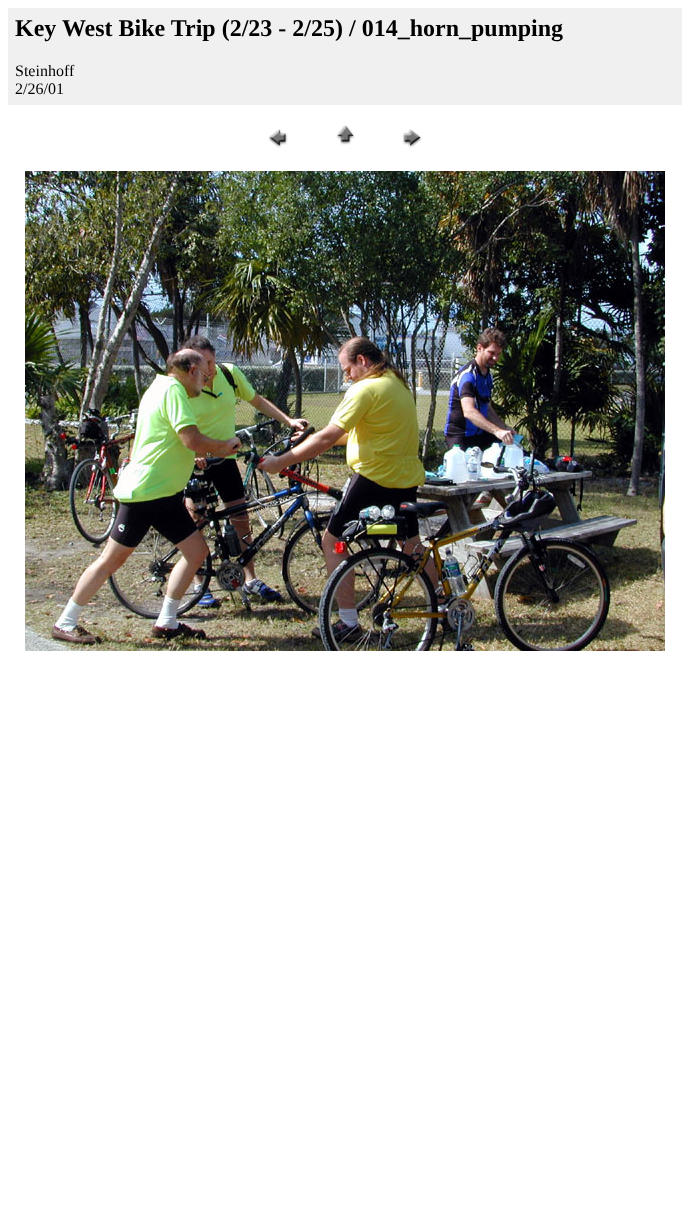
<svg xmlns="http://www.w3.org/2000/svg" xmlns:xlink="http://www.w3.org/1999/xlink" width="690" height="1205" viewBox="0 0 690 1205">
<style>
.cls-1{font:bold 24px Liberation Serif;fill:#000000}
.cls-2{font:16px Liberation Serif;fill:#000000}
</style>
<rect width="100%" height="100%" fill="#ffffff"/>
<rect fill="#f0f0f0" x="8" y="8" width="674" height="97"/>
<image xlink:href="image0.png" x="268" y="129" width="20" height="19"/>
<image xlink:href="image1.png" x="336" y="125" width="19" height="20"/>
<image xlink:href="image2.png" x="402" y="129" width="20" height="19"/>
<image xlink:href="image3.png" x="25" y="171" width="640" height="480"/>
<text class="cls-1" x="15" y="36">Key West Bike Trip (2/23 - 2/25) / 014_horn_pumping</text>
<text class="cls-2"><tspan x="15" y="76">Steinhoff</tspan><tspan x="15" y="94">2/26/01</tspan></text>
</svg>
